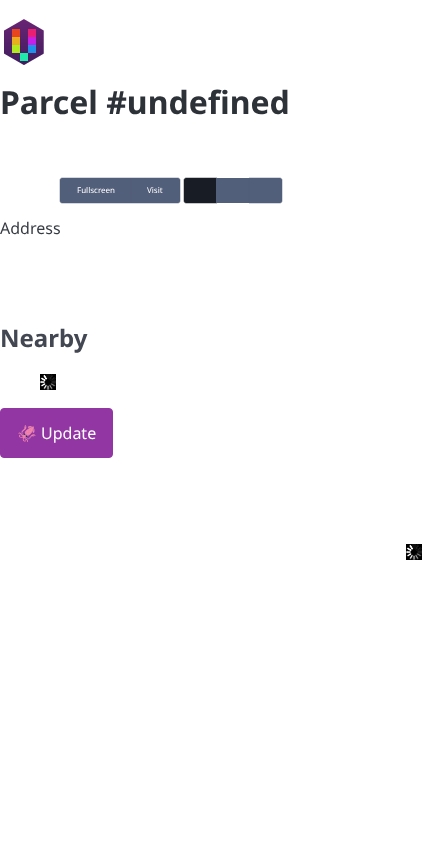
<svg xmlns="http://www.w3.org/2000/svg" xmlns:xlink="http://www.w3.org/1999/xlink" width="422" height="860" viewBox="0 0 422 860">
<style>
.cls-1{font:bold 32px Noto Sans;fill:#2d3138}
.cls-2{font:8px Noto Sans;fill:#ffffff}
.cls-3{font:16px Noto Sans;fill:#373c44}
.cls-4{font:bold 24px Noto Sans;fill:#424751}
.cls-5{font:16px Noto Color Emoji;fill:#ffffff}
.cls-6{font:16px Noto Sans;fill:#ffffff}
</style>
<rect width="100%" height="100%" fill="#ffffff"/>
<image xlink:href="image0.png" x="4" y="19" width="40" height="46"/>
<path fill="#525f7a" stroke="#525f7a" stroke-width="0.5" d="M62 178H131V203H62C61 203 60 202 60 201V180C60 179 61 178 62 178Z"/>
<path fill="#525f7a" stroke="#525f7a" stroke-width="0.5" d="M131 178H178C179 178 180 179 180 180V201C180 202 179 203 178 203H131Z"/>
<path fill="#181c25" stroke="#181c25" stroke-width="0.5" d="M186 178H217V203H186C185 203 184 202 184 201V180C184 179 185 178 186 178Z"/>
<rect fill="#525f7a" x="216" y="178" width="33" height="25"/>
<path fill="#525f7a" stroke="#525f7a" stroke-width="0.5" d="M249 178H280C281 178 282 179 282 180V201C282 202 281 203 280 203H249Z"/>
<image xlink:href="image1.png" x="40" y="374" width="16" height="16"/>
<rect fill="#9236a4" stroke="#9236a4" x="0.5" y="408.5" width="112" height="49" rx="3.5"/>
<image xlink:href="image1.png" x="406" y="544" width="16" height="16"/>
<text class="cls-1" x="0" y="114">Parcel #undefined</text>
<text class="cls-2" x="77" y="193">Fullscreen</text>
<text class="cls-2" x="147" y="193">Visit</text>
<text class="cls-3" x="0" y="234">Address</text>
<text class="cls-4" x="0" y="347">Nearby</text>
<text class="cls-5" x="17" y="439">🦑</text>
<text class="cls-6" x="41" y="439">Update</text>
</svg>
